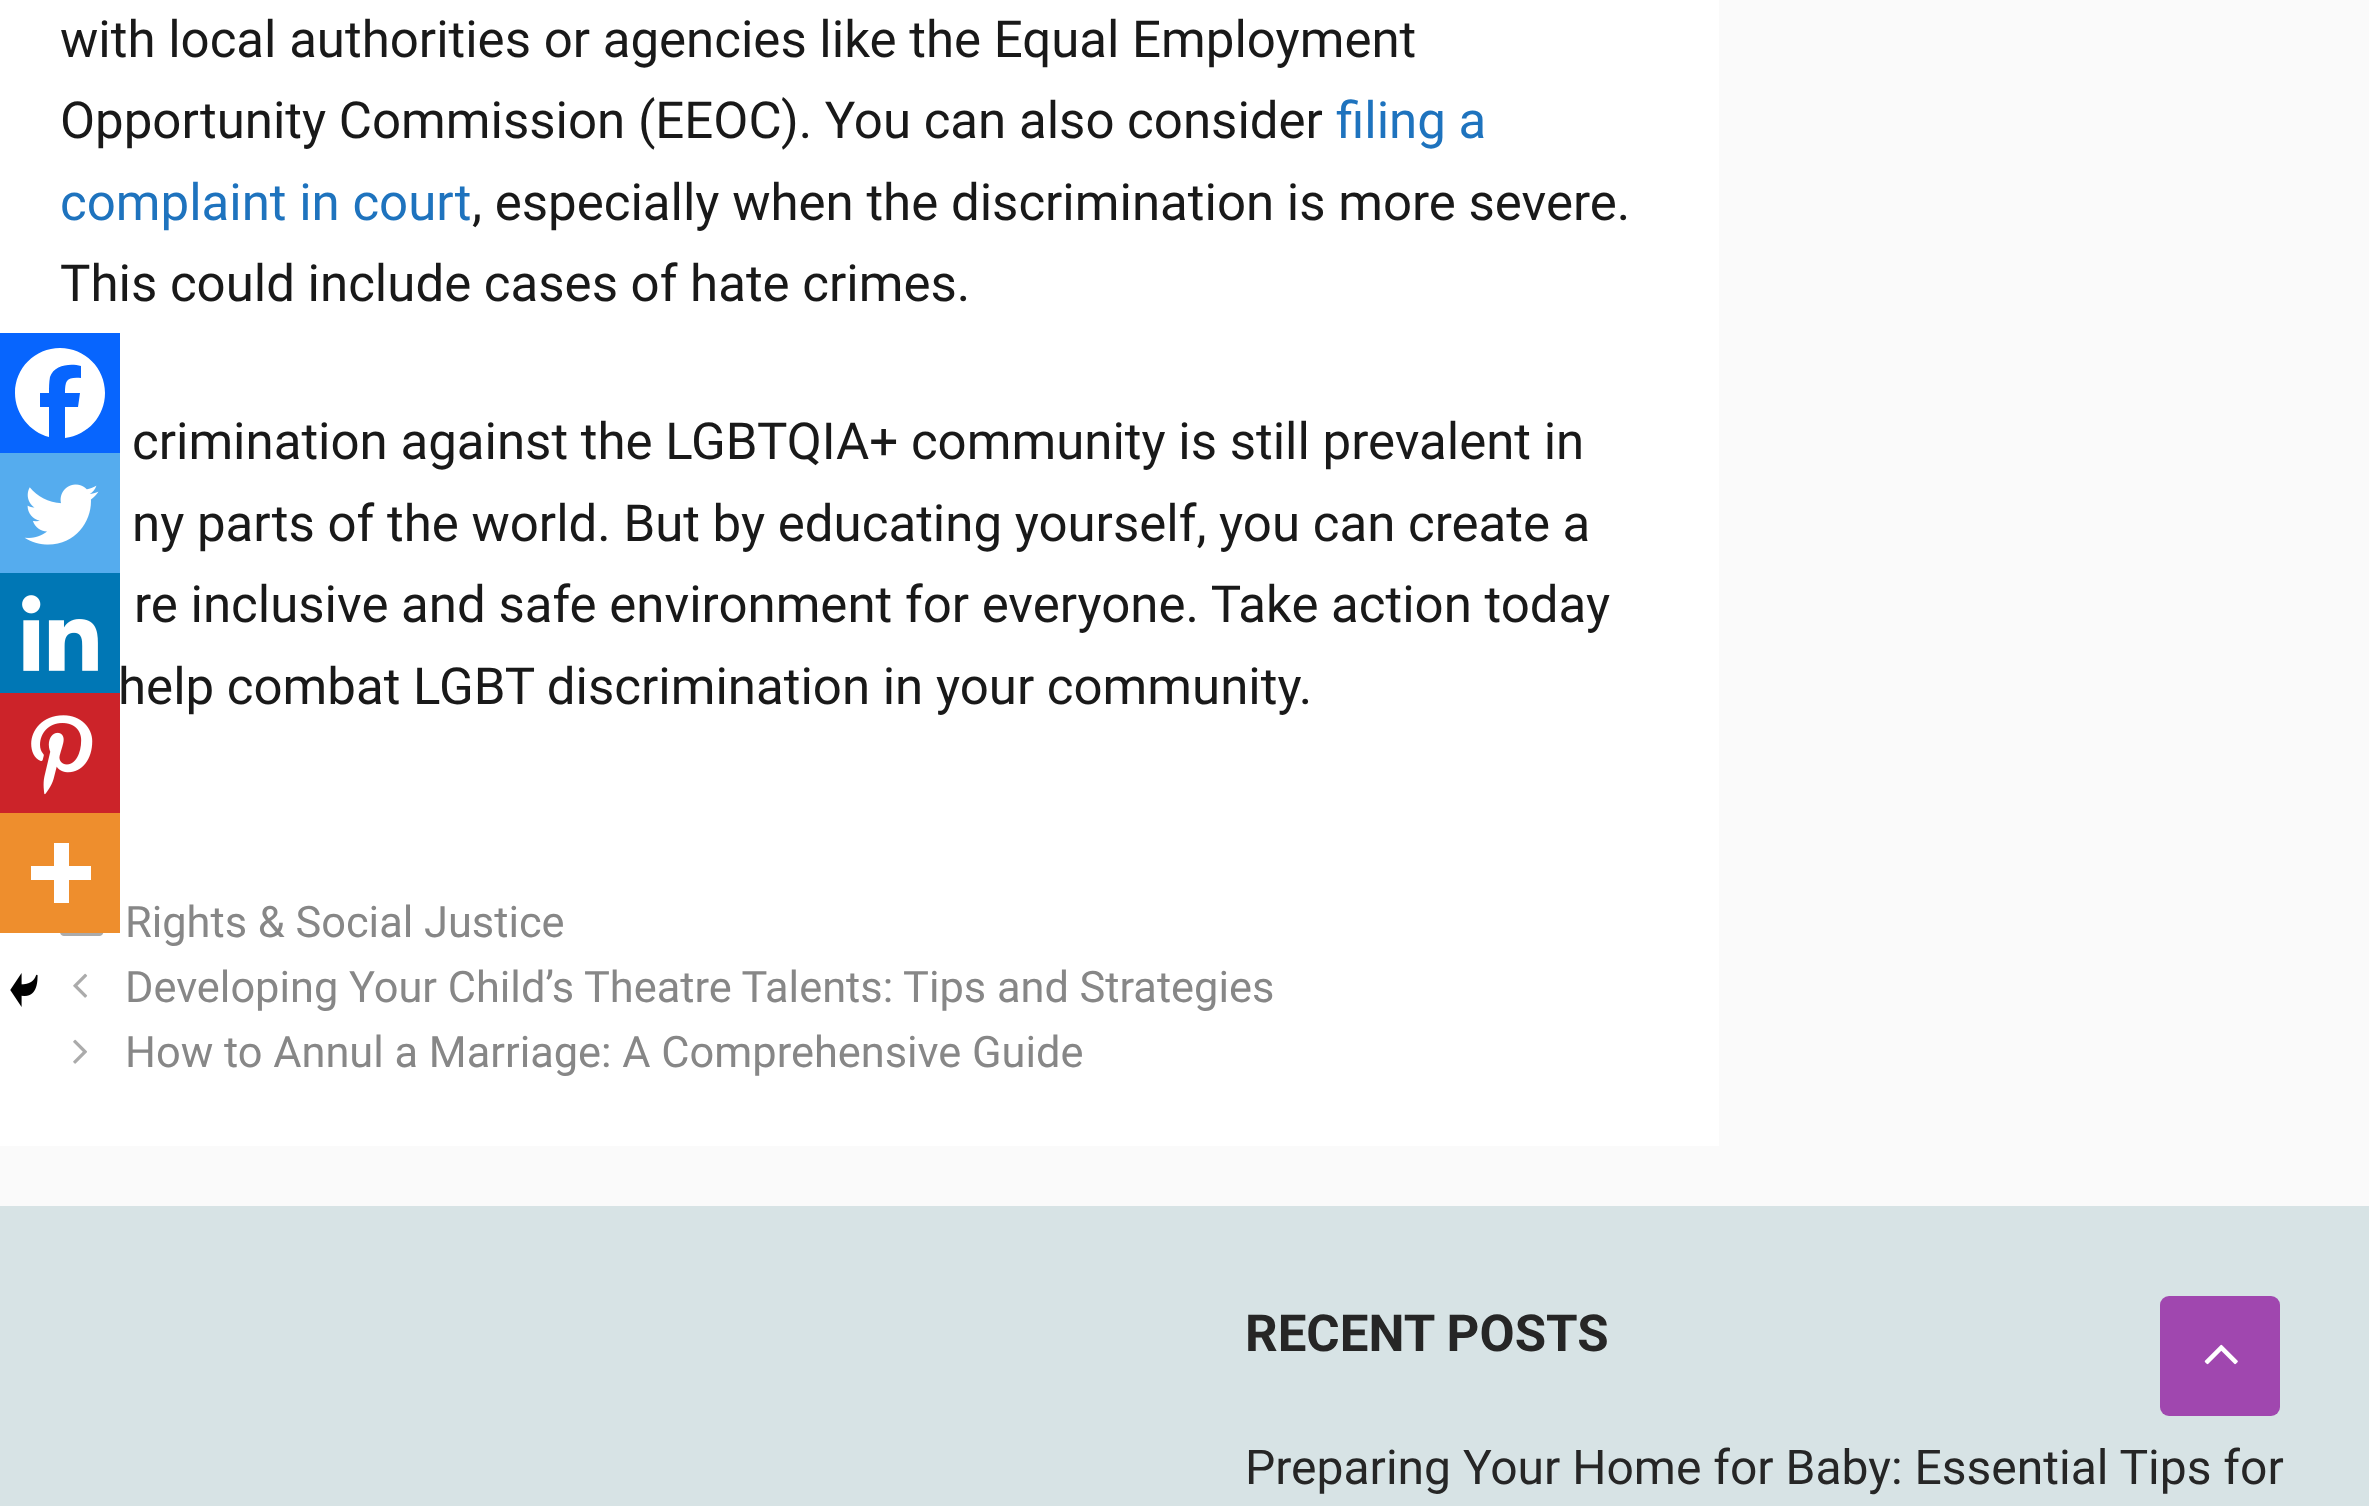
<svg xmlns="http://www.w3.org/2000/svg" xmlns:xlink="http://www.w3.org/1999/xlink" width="2369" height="1506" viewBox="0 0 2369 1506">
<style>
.cls-1{font:51px Roboto;fill:#191919}
.cls-2{font:51px Roboto;fill:#1e73be}
.cls-3{font:43.35px Roboto;fill:#878787}
.cls-4{font:bold 51px Roboto;fill:#262626}
.cls-5{font:48px Roboto;fill:#262626}
</style>
<rect width="100%" height="100%" fill="#fafafa"/>
<rect fill="#ffffff" x="0" y="0" width="1719" height="1146"/>
<rect fill="#0765fe" x="0" y="333" width="120" height="120"/>
<path fill="#ffffff" d="M105 393C105 368 85 348 60 348C35 348 15 368 15 393C15 414 30 432 49 437V407H40V393H49C49 388 49 382 50 377C54 365 70 363 81 366V378C67 377 65 380 65 393H80L78 407H65V438C88 435 105 416 105 393Z"/>
<rect fill="#55acee" x="0" y="453" width="120" height="120"/>
<image xlink:href="image0.png" x="24" y="484" width="75" height="61"/>
<rect fill="#0077b5" x="0" y="573" width="120" height="120"/>
<image xlink:href="image1.png" x="22" y="595" width="76" height="76"/>
<rect fill="#cc2329" x="0" y="693" width="120" height="120"/>
<image xlink:href="image2.png" x="31" y="715" width="62" height="80"/>
<rect fill="#ee8e2d" x="0" y="813" width="120" height="120"/>
<path fill="#ffffff" fill-rule="evenodd" d="M69 866V843H54V866H31V880H54V903H69V880H91V866Z"/>
<image xlink:href="image3.png" x="10" y="973" width="28" height="34"/>
<image xlink:href="image4.png" x="60" y="933" width="44" height="3"/>
<image xlink:href="image5.png" x="73" y="973" width="15" height="25"/>
<image xlink:href="image6.png" x="73" y="1039" width="14" height="25"/>
<rect fill="#d7e3e5" x="0" y="1206" width="2369" height="300"/>
<rect fill="#a047af" x="2160" y="1296" width="120" height="120" rx="9"/>
<image xlink:href="image7.png" x="2204" y="1344" width="34" height="21"/>
<text class="cls-1"><tspan x="60" y="57">with local authorities or agencies like the Equal Employment</tspan><tspan x="60" y="138">Opportunity Commission (EEOC). You can also consider</tspan></text>
<text class="cls-2" x="1336" y="138">filing a</text>
<text class="cls-2" x="60" y="220">complaint in court</text>
<text class="cls-1" x="472" y="220">, especially when the discrimination is more severe.</text>
<text class="cls-1" x="60" y="301">This could include cases of hate crimes.</text>
<text class="cls-1"><tspan x="132" y="459">crimination against the LGBTQIA+ community is still prevalent in</tspan><tspan x="132" y="541">ny parts of the world. But by educating yourself, you can create a</tspan></text>
<text class="cls-1" x="134" y="622">re inclusive and safe environment for everyone. Take action today</text>
<text class="cls-1" x="118" y="704">help combat LGBT discrimination in your community.</text>
<text class="cls-3"><tspan x="125" y="937">Rights &amp; Social Justice</tspan><tspan x="125" y="1002">Developing Your Child’s Theatre Talents: Tips and Strategies</tspan><tspan x="125" y="1067">How to Annul a Marriage: A Comprehensive Guide</tspan></text>
<text class="cls-4" x="1245" y="1351">RECENT POSTS</text>
<text class="cls-5" x="1245" y="1484">Preparing Your Home for Baby: Essential Tips for</text>
</svg>
